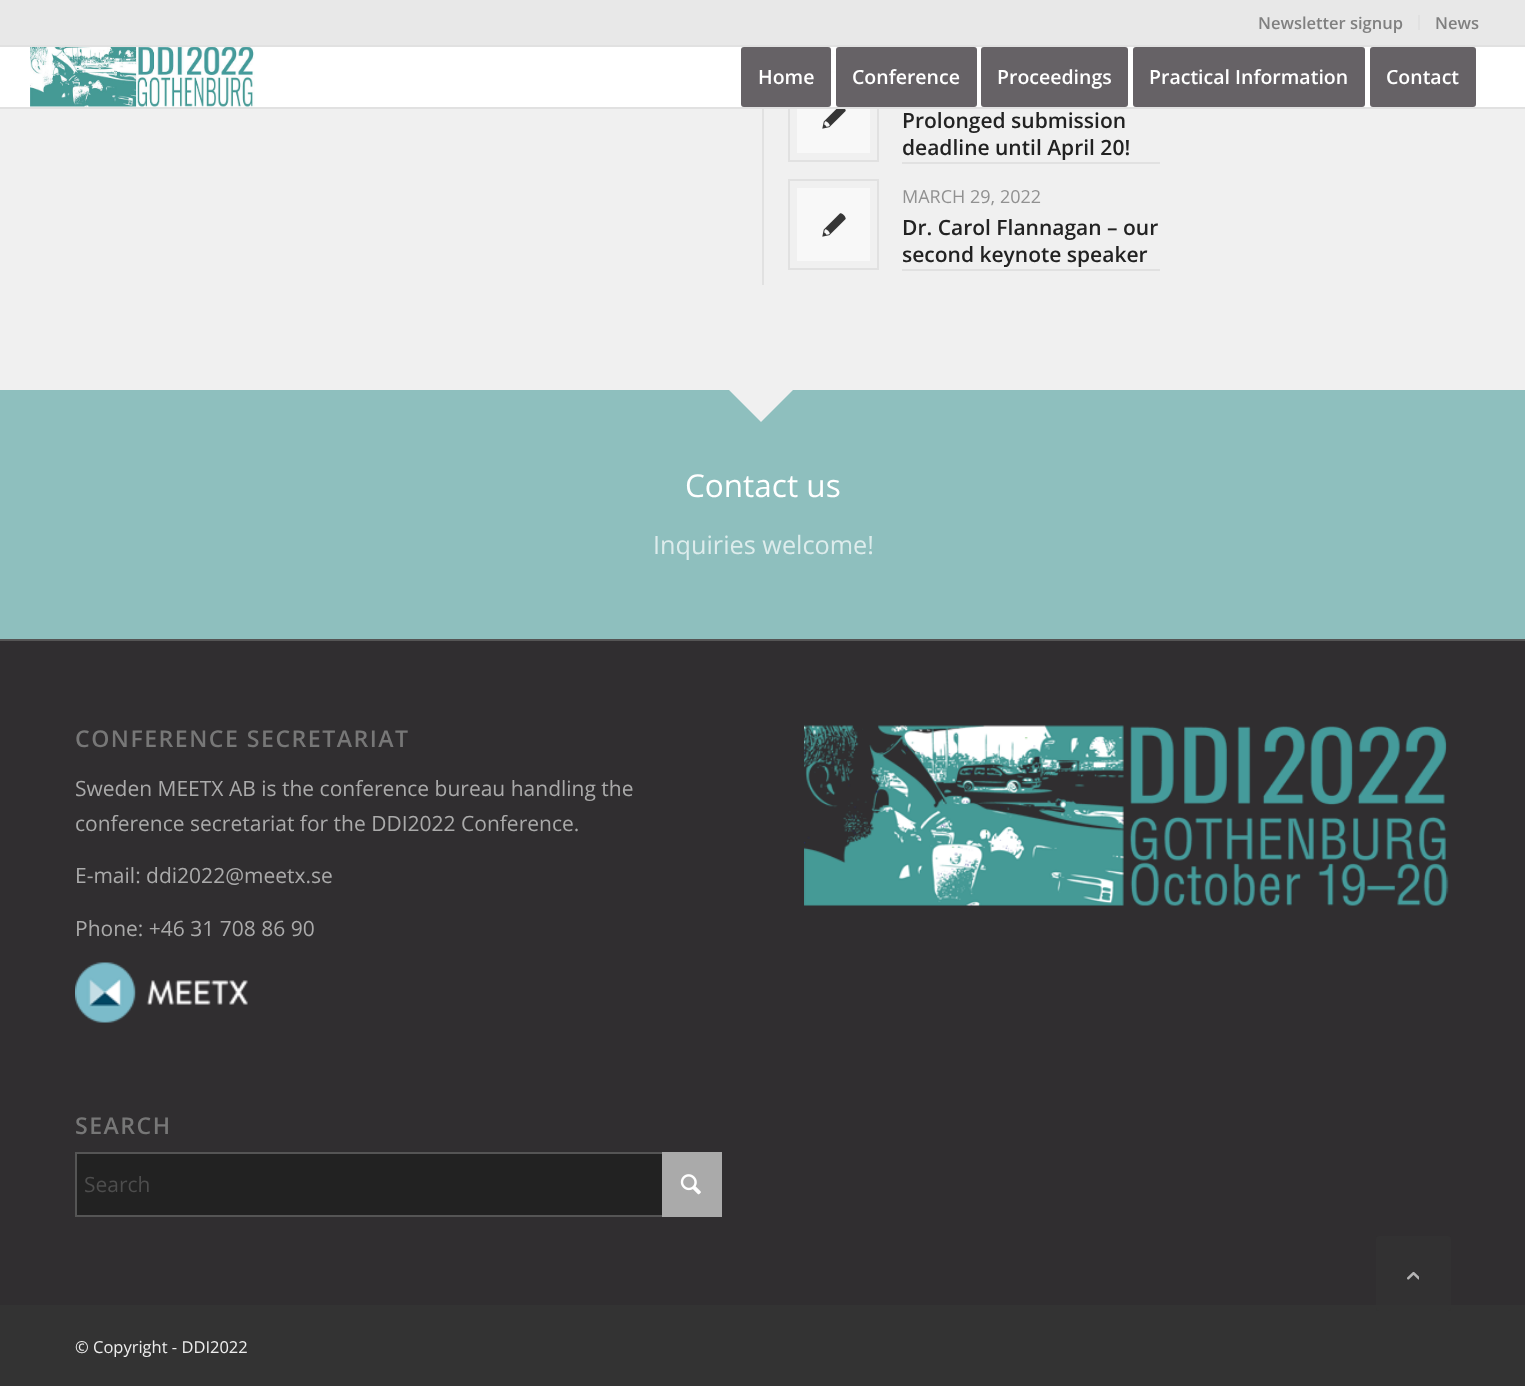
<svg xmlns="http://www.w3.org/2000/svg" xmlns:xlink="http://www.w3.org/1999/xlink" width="1525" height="1386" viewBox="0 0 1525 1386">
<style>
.cls-1{font:600 16.5px Open Sans;fill:#808080}
.cls-2{font:600 19.5px Open Sans;fill:#ffffff}
.cls-3{font:600 21px Open Sans;fill:#222222}
.cls-4{font:18px Open Sans;fill:#919191}
.cls-5{font:31.5px Open Sans;fill:#ffffff}
.cls-6{font:25.25px Open Sans;fill:#ddecec}
.cls-7{font:600 23.1px Open Sans;letter-spacing:1.5px;fill:#777777}
.cls-8{font:21px Open Sans;fill:#aaaaaa}
.cls-9{font:21px Open Sans;fill:#4d4d4d}
.cls-10{font:16.5px Open Sans;fill:#eeeeee}
</style>
<defs>
<clipPath id="clip1"><rect x="725" y="390" width="75" height="38"/></clipPath>
</defs>
<rect width="100%" height="100%" fill="#f0f0f0"/>
<rect fill="none" stroke="#e1e1e1" stroke-width="2" x="789" y="-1" width="89" height="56"/>
<rect fill="#e8e8e8" x="0" y="0" width="1525" height="45"/>
<rect fill="#e1e1e1" x="0" y="45" width="1525" height="2"/>
<rect fill="#e1e1e1" x="1418" y="15" width="2" height="15"/>
<rect fill="#e1e1e1" x="977" y="54" width="156" height="2"/>
<rect fill="none" stroke="#e1e1e1" stroke-width="2" x="789" y="72" width="89" height="89"/>
<rect fill="#f8f8f8" x="797" y="80" width="73" height="73"/>
<image xlink:href="image1.png" x="822" y="106" width="24" height="23"/>
<rect fill="#ffffff" fill-opacity="0.95" x="0" y="47" width="1525" height="60"/>
<rect fill="#e1e1e1" x="0" y="107" width="1525" height="2"/>
<image xlink:href="image0.png" x="30" y="47" width="225" height="60"/>
<rect fill="#666266" stroke="#666266" stroke-width="3" x="742.5" y="48.5" width="87" height="57" rx="1.5"/>
<rect fill="#666266" stroke="#666266" stroke-width="3" x="837.5" y="48.5" width="138" height="57" rx="1.5"/>
<rect fill="#666266" stroke="#666266" stroke-width="3" x="982.5" y="48.5" width="144" height="57" rx="1.5"/>
<rect fill="#666266" stroke="#666266" stroke-width="3" x="1134.5" y="48.5" width="229" height="57" rx="1.5"/>
<rect fill="#666266" stroke="#666266" stroke-width="3" x="1371.5" y="48.5" width="103" height="57" rx="1.5"/>
<rect fill="#e1e1e1" x="762" y="109" width="2" height="176"/>
<rect fill="#e1e1e1" x="902" y="162" width="258" height="2"/>
<rect fill="none" stroke="#e1e1e1" stroke-width="2" x="789" y="180" width="89" height="89"/>
<rect fill="#f8f8f8" x="797" y="188" width="73" height="73"/>
<image xlink:href="image2.png" x="822" y="213" width="24" height="24"/>
<rect fill="#e1e1e1" x="902" y="269" width="258" height="2"/>
<rect fill="#8ebfbe" x="0" y="390" width="1525" height="249"/>
<g clip-path="url(#clip1)">
<path fill="#f0f0f0" d="M761 316L814 369L761 422L708 369Z"/>
</g>
<rect fill="#302e30" x="0" y="641" width="1525" height="664"/>
<rect fill="#555555" x="0" y="639" width="1525" height="2"/>
<image xlink:href="image3.png" x="75" y="962" width="173" height="61"/>
<rect fill="#222222" x="77" y="1154" width="585" height="61"/>
<rect fill="none" stroke="#555555" stroke-width="2" x="76" y="1153" width="645" height="63"/>
<rect fill="#aaaaaa" x="662" y="1152" width="60" height="65"/>
<image xlink:href="image4.png" x="680" y="1174" width="21" height="21"/>
<image xlink:href="image5.png" x="804" y="725" width="645" height="181"/>
<rect fill="#333333" x="0" y="1305" width="1525" height="81"/>
<rect fill="#333333" fill-opacity="0.7" x="1376" y="1236" width="75" height="75" rx="3"/>
<image xlink:href="image6.png" x="1407" y="1271" width="12" height="9"/>
<text class="cls-1" x="1258" y="29">Newsletter signup</text>
<text class="cls-1" x="1435" y="29">News</text>
<text class="cls-2" x="758" y="84">Home</text>
<text class="cls-2" x="852" y="84">Conference</text>
<text class="cls-2" x="997" y="84">Proceedings</text>
<text class="cls-2" x="1149" y="84">Practical Information</text>
<text class="cls-2" x="1386" y="84">Contact</text>
<text class="cls-3"><tspan x="902" y="128">Prolonged submission</tspan><tspan x="902" y="155">deadline until April 20!</tspan></text>
<text class="cls-4" x="902" y="203">MARCH 29, 2022</text>
<text class="cls-3"><tspan x="902" y="235">Dr. Carol Flannagan – our</tspan><tspan x="902" y="262">second keynote speaker</tspan></text>
<text class="cls-5" x="685" y="497">Contact us</text>
<text class="cls-6" x="653" y="554">Inquiries welcome!</text>
<text class="cls-7" x="75" y="747">CONFERENCE SECRETARIAT</text>
<text class="cls-8"><tspan x="75" y="796">Sweden MEETX AB is the conference bureau handling the</tspan><tspan x="75" y="831">conference secretariat for the DDI2022 Conference.</tspan></text>
<text class="cls-8" x="75" y="883">E-mail: ddi2022@meetx.se</text>
<text class="cls-8" x="75" y="936">Phone: +46 31 708 86 90</text>
<text class="cls-7" x="75" y="1134">SEARCH</text>
<text class="cls-9" x="84" y="1192">Search</text>
<text class="cls-10" x="75" y="1353">© Copyright - DDI2022</text>
</svg>
